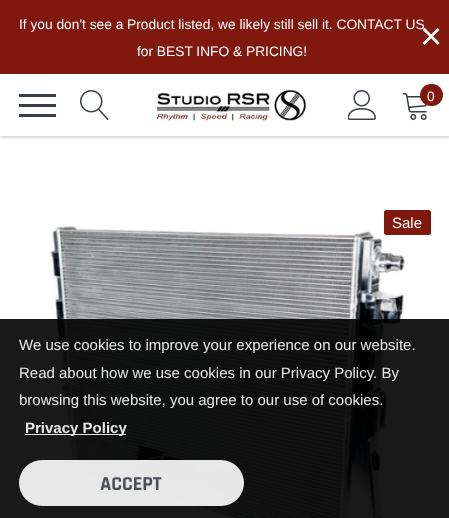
<svg xmlns="http://www.w3.org/2000/svg" xmlns:xlink="http://www.w3.org/1999/xlink" width="449" height="518" viewBox="0 0 449 518">
<style>
.cls-1{font:13.75px Arimo;fill:#ffffff}
.cls-2{font:38px Arimo;fill:#ffffff}
.cls-3{font:15px Arimo;fill:#ffffff}
.cls-4{font:15px Arimo;fill:#e7e7e7}
.cls-5{font:bold 15px Arimo;fill:#e7e7e7}
.cls-6{font:bold 20px Rajdhani;fill:#4a4f57}
</style>
<defs>
<clipPath id="clip1"><rect x="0" y="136" width="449" height="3"/></clipPath>
</defs>
<rect width="100%" height="100%" fill="#ffffff"/>
<rect fill="#80180e" x="0" y="0" width="449" height="74"/>
<g clip-path="url(#clip1)">
<rect fill="#000000" fill-opacity="0.15" filter="blur(1px)" x="0" y="75" width="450" height="63"/>
</g>
<rect fill="#383e47" x="19" y="104" width="37" height="3"/>
<rect fill="#383e47" x="19" y="94" width="37" height="3"/>
<rect fill="#383e47" x="19" y="114" width="37" height="3"/>
<image xlink:href="image0.png" x="80" y="90" width="29" height="30"/>
<image xlink:href="image1.png" x="156" y="88" width="150" height="35"/>
<image xlink:href="image2.png" x="348" y="90" width="28" height="30"/>
<image xlink:href="image3.png" x="402" y="93" width="25" height="27"/>
<rect fill="#80180e" x="420" y="84" width="23" height="22" rx="11"/>
<image xlink:href="image4.png" x="50" y="226" width="355" height="292"/>
<rect fill="#80180e" x="384" y="210" width="47" height="25" rx="2.5"/>
<rect fill="#000000" fill-opacity="0.9" x="0" y="319" width="449" height="199"/>
<rect fill="#ffffff" fill-opacity="0.9" x="25" y="434" width="101" height="1"/>
<rect fill="#ffffff" fill-opacity="0.9" x="19" y="460" width="225" height="46" rx="23"/>
<text class="cls-1" x="19" y="29">If you don't see a Product listed, we likely still sell it. CONTACT US</text>
<text class="cls-1" x="137" y="56">for BEST INFO &amp; PRICING!</text>
<text class="cls-2" x="420" y="49">×</text>
<text class="cls-1" x="427" y="101">0</text>
<text class="cls-3" x="392" y="228">Sale</text>
<text class="cls-4"><tspan x="19" y="350">We use cookies to improve your experience on our website.</tspan><tspan x="19" y="378">Read about how we use cookies in our Privacy Policy. By</tspan><tspan x="19" y="405">browsing this website, you agree to our use of cookies.</tspan></text>
<text class="cls-5" x="25" y="433">Privacy Policy</text>
<text class="cls-6" x="100" y="490">ACCEPT</text>
</svg>
